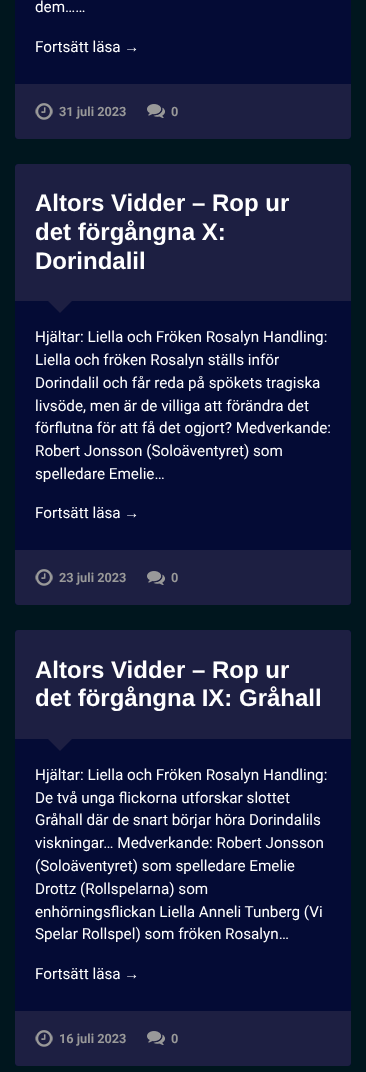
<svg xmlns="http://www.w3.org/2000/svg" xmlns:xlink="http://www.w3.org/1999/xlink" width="366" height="1072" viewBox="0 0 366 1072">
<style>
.cls-1{font:15.25px Roboto;fill:#ffffff}
.cls-2{font:15.25px Liberation Sans;fill:#ffffff}
.cls-3{font:bold 12.75px Roboto;fill:#999999}
.cls-4{font:bold 24px Liberation Sans;fill:#ffffff}
</style>
<rect width="100%" height="100%" fill="#00161e"/>
<rect fill="#040b35" x="15" y="-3" width="336" height="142" rx="3"/>
<path fill="#1d1f42" d="M15 84H351V136C351 137.5 349.5 139 348 139H18C16.5 139 15 137.5 15 136Z"/>
<image xlink:href="image0.png" x="35" y="103" width="18" height="17"/>
<image xlink:href="image1.png" x="147" y="104" width="18" height="14"/>
<rect fill="#040b35" x="15" y="164" width="336" height="441" rx="3"/>
<path fill="#1d1f42" d="M18 164H348C349.5 164 351 165.5 351 167V301H15V167C15 165.5 16.5 164 18 164Z"/>
<path fill="#1d1f42" d="M48 301H72L60 313Z"/>
<path fill="#1d1f42" d="M15 550H351V602C351 603.5 349.5 605 348 605H18C16.5 605 15 603.5 15 602Z"/>
<image xlink:href="image0.png" x="35" y="569" width="18" height="17"/>
<image xlink:href="image1.png" x="147" y="571" width="18" height="14"/>
<rect fill="#040b35" x="15" y="630" width="336" height="436" rx="3"/>
<path fill="#1d1f42" d="M18 630H348C349.5 630 351 631.5 351 633V739H15V633C15 631.5 16.5 630 18 630Z"/>
<path fill="#1d1f42" d="M48 739H72L60 751Z"/>
<path fill="#1d1f42" d="M15 1011H351V1063C351 1064.5 349.5 1066 348 1066H18C16.5 1066 15 1064.5 15 1063Z"/>
<image xlink:href="image0.png" x="35" y="1030" width="18" height="17"/>
<image xlink:href="image1.png" x="147" y="1031" width="18" height="14"/>
<text class="cls-1" x="35" y="12">dem……</text>
<text class="cls-1" x="35" y="52">Fortsätt läsa</text>
<text class="cls-2" x="124" y="52">→</text>
<text class="cls-3" x="59" y="116">31 juli 2023</text>
<text class="cls-3" x="171" y="116">0</text>
<text class="cls-4"><tspan x="35" y="211">Altors Vidder – Rop ur</tspan><tspan x="35" y="240">det förgångna X:</tspan><tspan x="35" y="269">Dorindalil</tspan></text>
<text class="cls-1"><tspan x="35" y="342">Hjältar: Liella och Fröken Rosalyn Handling:</tspan><tspan x="35" y="365">Liella och fröken Rosalyn ställs inför</tspan><tspan x="35" y="388">Dorindalil och får reda på spökets tragiska</tspan><tspan x="35" y="411">livsöde, men är de villiga att förändra det</tspan><tspan x="35" y="433">förflutna för att få det ogjort? Medverkande:</tspan><tspan x="35" y="456">Robert Jonsson (Soloäventyret) som</tspan><tspan x="35" y="479">spelledare Emelie…</tspan></text>
<text class="cls-1" x="35" y="518">Fortsätt läsa</text>
<text class="cls-2" x="124" y="518">→</text>
<text class="cls-3" x="59" y="582">23 juli 2023</text>
<text class="cls-3" x="171" y="582">0</text>
<text class="cls-4"><tspan x="35" y="678">Altors Vidder – Rop ur</tspan><tspan x="35" y="706">det förgångna IX: Gråhall</tspan></text>
<text class="cls-1"><tspan x="35" y="780">Hjältar: Liella och Fröken Rosalyn Handling:</tspan><tspan x="35" y="803">De två unga flickorna utforskar slottet</tspan><tspan x="35" y="825">Gråhall där de snart börjar höra Dorindalils</tspan><tspan x="35" y="848">viskningar… Medverkande: Robert Jonsson</tspan><tspan x="35" y="871">(Soloäventyret) som spelledare Emelie</tspan><tspan x="35" y="894">Drottz (Rollspelarna) som</tspan><tspan x="35" y="917">enhörningsflickan Liella Anneli Tunberg (Vi</tspan><tspan x="35" y="939">Spelar Rollspel) som fröken Rosalyn…</tspan></text>
<text class="cls-1" x="35" y="979">Fortsätt läsa</text>
<text class="cls-2" x="124" y="979">→</text>
<text class="cls-3" x="59" y="1043">16 juli 2023</text>
<text class="cls-3" x="171" y="1043">0</text>
</svg>
